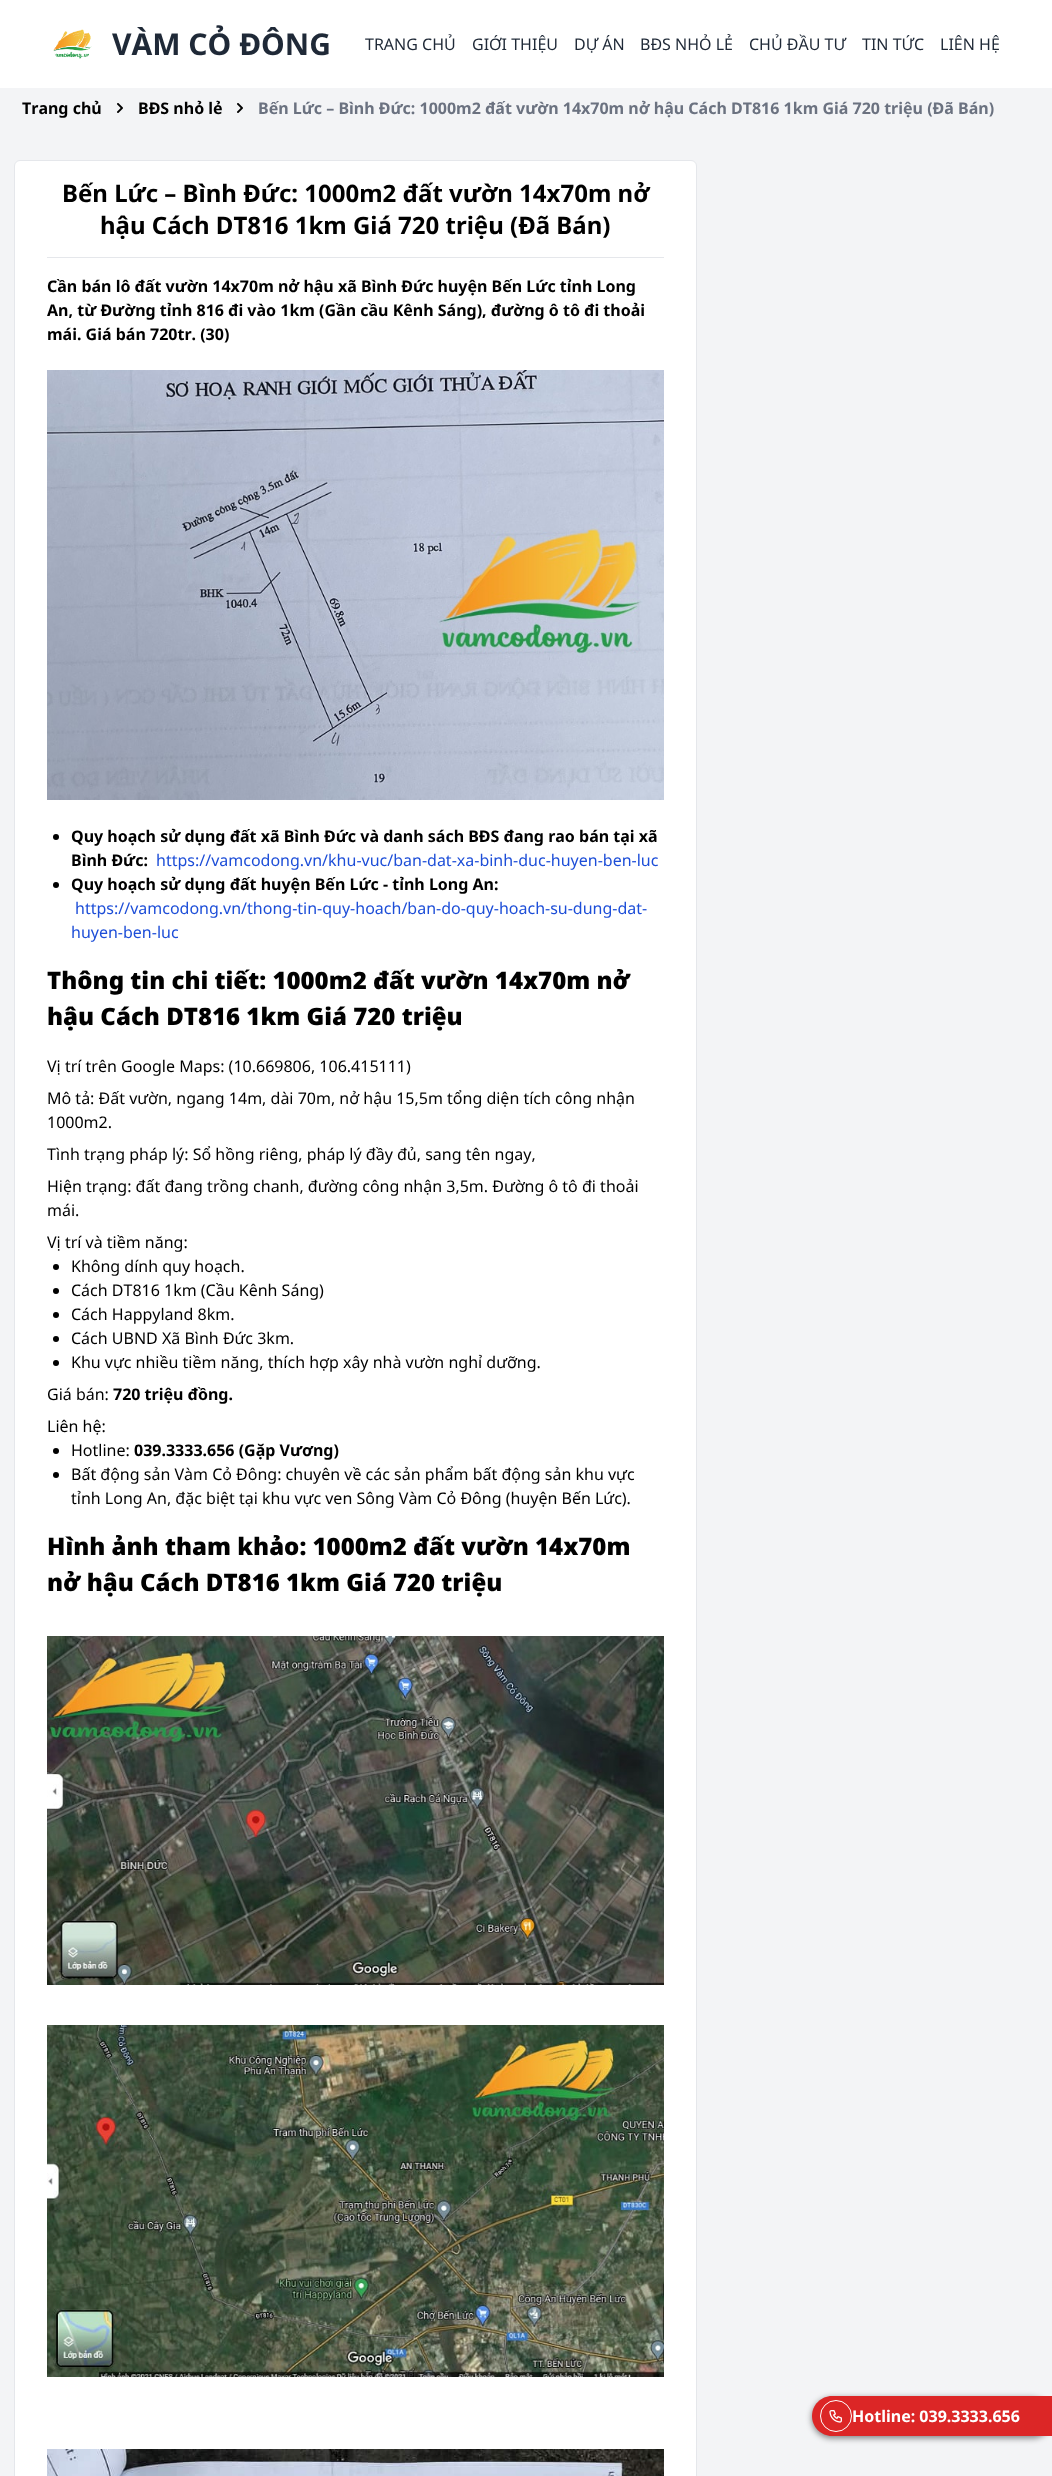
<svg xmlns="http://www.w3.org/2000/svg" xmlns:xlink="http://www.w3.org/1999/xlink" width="1052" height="2476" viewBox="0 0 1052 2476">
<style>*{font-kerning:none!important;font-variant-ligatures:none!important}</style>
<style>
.cls-1{font:bold 30px Noto Sans;fill:#1f2937}
.cls-2{font:16px Noto Sans;fill:#1f2937}
.cls-3{font:bold 16px Noto Sans;fill:#000000}
.cls-4{font:bold 16px Noto Sans;fill:#6b7280}
.cls-5{font:bold 24px Noto Sans;fill:#000000}
.cls-6{font:16px Noto Sans;fill:#1d4ed8}
.cls-7{font:900 24px Noto Sans;fill:#000000}
.cls-8{font:16px Noto Sans;fill:#000000}
.cls-9{font:bold 16px Noto Sans;fill:#ffffff}
</style>
<rect width="100%" height="100%" fill="#f3f4f6"/>
<rect fill="#ffffff" x="0" y="0" width="1052" height="88"/>
<image xlink:href="image0.png" x="53" y="29" width="39" height="30"/>
<image xlink:href="image1.png" x="117" y="103" width="6" height="10"/>
<image xlink:href="image1.png" x="237" y="103" width="6" height="10"/>
<rect fill="#ffffff" stroke="#e5e7eb" x="14.5" y="160.5" width="682" height="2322" rx="5.5"/>
<rect fill="#e5e7eb" x="47" y="257" width="617" height="1"/>
<image xlink:href="image2.png" x="47" y="370" width="617" height="430"/>
<circle fill="#000000" cx="56" cy="837" r="3"/>
<circle fill="#000000" cx="56" cy="885" r="3"/>
<circle fill="#000000" cx="56" cy="1267" r="3"/>
<circle fill="#000000" cx="56" cy="1291" r="3"/>
<circle fill="#000000" cx="56" cy="1315" r="3"/>
<circle fill="#000000" cx="56" cy="1339" r="3"/>
<circle fill="#000000" cx="56" cy="1363" r="3"/>
<circle fill="#000000" cx="56" cy="1451" r="3"/>
<circle fill="#000000" cx="56" cy="1475" r="3"/>
<image xlink:href="image3.png" x="47" y="1636" width="617" height="349"/>
<image xlink:href="image4.png" x="47" y="2025" width="617" height="352"/>
<image xlink:href="image5.png" x="47" y="2449" width="617" height="27"/>
<rect fill="#010101" fill-opacity="0.5" filter="blur(3px)" x="812" y="2398" width="240" height="40" rx="20"/>
<path fill="#dc2626" d="M832 2396H1052V2436H832C821 2436 812 2427 812 2416C812 2405 821 2396 832 2396Z"/>
<image xlink:href="image6.png" x="829" y="2410" width="13" height="13"/>
<circle fill="none" stroke="#ffffff" cx="836" cy="2416" r="15.5"/>
<text class="cls-1" x="112" y="55">VÀM CỎ ĐÔNG</text>
<text class="cls-2" x="365" y="50">TRANG CHỦ</text>
<text class="cls-2" x="472" y="50">GIỚI THIỆU</text>
<text class="cls-2" x="574" y="50">DỰ ÁN</text>
<text class="cls-2" x="640" y="50">BĐS NHỎ LẺ</text>
<text class="cls-2" x="749" y="50">CHỦ ĐẦU TƯ</text>
<text class="cls-2" x="862" y="50">TIN TỨC</text>
<text class="cls-2" x="940" y="50">LIÊN HỆ</text>
<text class="cls-3" x="22" y="114">Trang chủ</text>
<text class="cls-3" x="138" y="114">BĐS nhỏ lẻ</text>
<text class="cls-4" x="258" y="114">Bến Lức – Bình Đức: 1000m2 đất vườn 14x70m nở hậu Cách DT816 1km Giá 720 triệu (Đã Bán)</text>
<text class="cls-5" x="62" y="202">Bến Lức – Bình Đức: 1000m2 đất vườn 14x70m nở</text>
<text class="cls-5" x="100" y="234">hậu Cách DT816 1km Giá 720 triệu (Đã Bán)</text>
<text class="cls-3"><tspan x="47" y="292">Cần bán lô đất vườn 14x70m nở hậu xã Bình Đức huyện Bến Lức tỉnh Long</tspan><tspan x="47" y="316">An, từ Đường tỉnh 816 đi vào 1km (Gần cầu Kênh Sáng), đường ô tô đi thoải</tspan><tspan x="47" y="340">mái. Giá bán 720tr. (30)</tspan></text>
<text class="cls-3"><tspan x="71" y="842">Quy hoạch sử dụng đất xã Bình Đức và danh sách BĐS đang rao bán tại xã</tspan><tspan x="71" y="866">Bình Đức:</tspan></text>
<text class="cls-6" x="156" y="866">https://vamcodong.vn/khu-vuc/ban-dat-xa-binh-duc-huyen-ben-luc</text>
<text class="cls-3" x="71" y="890">Quy hoạch sử dụng đất huyện Bến Lức - tỉnh Long An:</text>
<text class="cls-6" x="75" y="914">https://vamcodong.vn/thong-tin-quy-hoach/ban-do-quy-hoach-su-dung-dat-</text>
<text class="cls-6" x="71" y="938">huyen-ben-luc</text>
<text class="cls-7"><tspan x="47" y="989">Thông tin chi tiết: 1000m2 đất vườn 14x70m nở</tspan><tspan x="47" y="1025">hậu Cách DT816 1km Giá 720 triệu</tspan></text>
<text class="cls-8" x="47" y="1072">Vị trí trên Google Maps: (10.669806, 106.415111)</text>
<text class="cls-8"><tspan x="47" y="1104">Mô tả: Đất vườn, ngang 14m, dài 70m, nở hậu 15,5m tổng diện tích công nhận</tspan><tspan x="47" y="1128">1000m2.</tspan></text>
<text class="cls-8" x="47" y="1160">Tình trạng pháp lý: Sổ hồng riêng, pháp lý đầy đủ, sang tên ngay,</text>
<text class="cls-8"><tspan x="47" y="1192">Hiện trạng: đất đang trồng chanh, đường công nhận 3,5m. Đường ô tô đi thoải</tspan><tspan x="47" y="1216">mái.</tspan></text>
<text class="cls-8" x="47" y="1248">Vị trí và tiềm năng:</text>
<text class="cls-8"><tspan x="71" y="1272">Không dính quy hoạch.</tspan><tspan x="71" y="1296">Cách DT816 1km (Cầu Kênh Sáng)</tspan><tspan x="71" y="1320">Cách Happyland 8km.</tspan><tspan x="71" y="1344">Cách UBND Xã Bình Đức 3km.</tspan><tspan x="71" y="1368">Khu vực nhiều tiềm năng, thích hợp xây nhà vườn nghỉ dưỡng.</tspan></text>
<text class="cls-8" x="47" y="1400">Giá bán:</text>
<text class="cls-3" x="113" y="1400">720 triệu đồng.</text>
<text class="cls-8" x="47" y="1432">Liên hệ:</text>
<text class="cls-8" x="71" y="1456">Hotline:</text>
<text class="cls-3" x="134" y="1456">039.3333.656 (Gặp Vương)</text>
<text class="cls-8"><tspan x="71" y="1480">Bất động sản Vàm Cỏ Đông: chuyên về các sản phẩm bất động sản khu vực</tspan><tspan x="71" y="1504">tỉnh Long An, đặc biệt tại khu vực ven Sông Vàm Cỏ Đông (huyện Bến Lức).</tspan></text>
<text class="cls-7"><tspan x="47" y="1555">Hình ảnh tham khảo: 1000m2 đất vườn 14x70m</tspan><tspan x="47" y="1591">nở hậu Cách DT816 1km Giá 720 triệu</tspan></text>
<text class="cls-9" x="852" y="2422">Hotline: 039.3333.656</text>
</svg>
